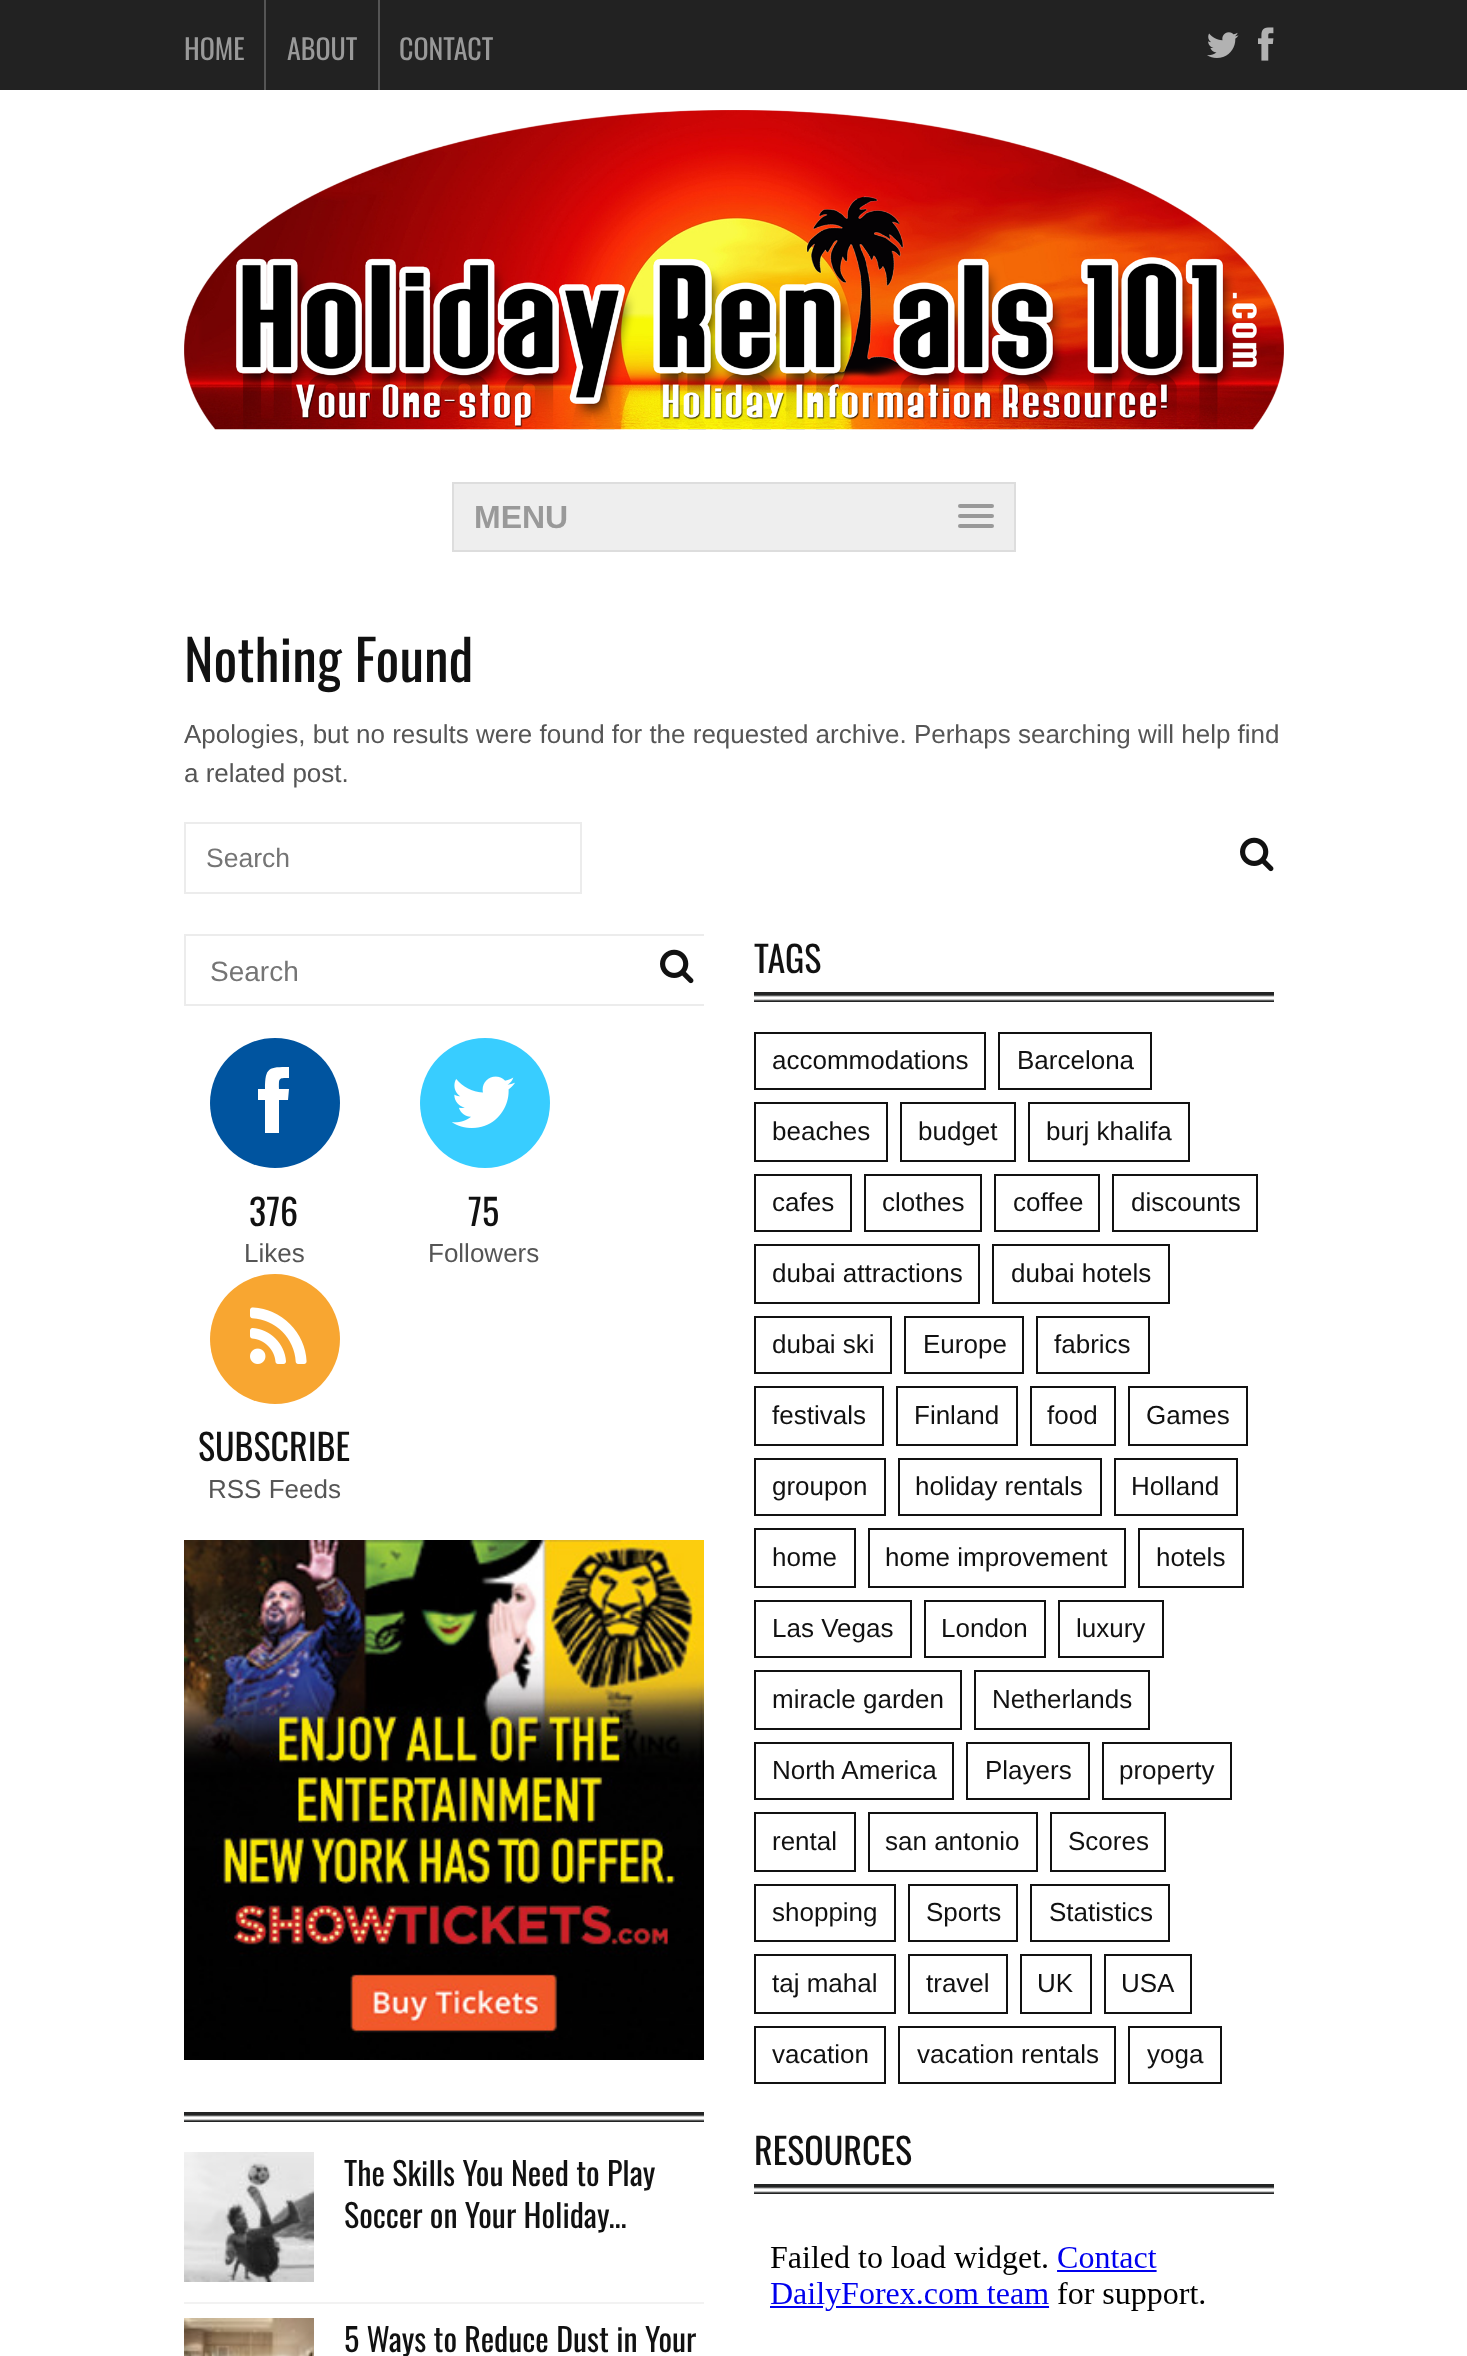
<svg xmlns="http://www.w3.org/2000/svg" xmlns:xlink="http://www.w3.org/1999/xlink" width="1467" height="2356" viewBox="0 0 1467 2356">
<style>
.cls-1{font:28px Oswald;fill:#999999}
.cls-2{font:bold 32px Liberation Sans;fill:#999999}
.cls-3{font:56px Oswald;fill:#111111}
.cls-4{font:26px Liberation Sans;fill:#555555}
.cls-5{font:26.5px Liberation Sans;fill:#757575}
.cls-6{font:36px Oswald;fill:#111111}
.cls-7{font:28px Liberation Sans;fill:#757575}
.cls-8{font:26px Liberation Sans;fill:#111111}
.cls-9{font:32px Oswald;fill:#111111}
</style>
<defs>
<clipPath id="clip1"><rect x="184" y="934" width="520" height="72"/></clipPath>
</defs>
<rect width="100%" height="100%" fill="#ffffff"/>
<rect fill="#222222" x="0" y="0" width="1467" height="90"/>
<rect fill="#555555" x="264" y="0" width="2" height="90"/>
<rect fill="#555555" x="378" y="0" width="2" height="90"/>
<image xlink:href="image0.png" x="1207" y="32" width="32" height="26"/>
<image xlink:href="image1.png" x="1258" y="27" width="16" height="34"/>
<image xlink:href="image2.png" x="184" y="110" width="1100" height="320"/>
<rect fill="#eeeeee" stroke="#dddddd" stroke-width="2" x="453" y="483" width="562" height="68"/>
<rect fill="#999999" x="958" y="504" width="36" height="4" rx="2"/>
<rect fill="#999999" x="958" y="514" width="36" height="4" rx="2"/>
<rect fill="#999999" x="958" y="524" width="36" height="4" rx="2"/>
<rect fill="none" stroke="#ececec" stroke-width="2" x="185" y="823" width="396" height="70"/>
<image xlink:href="image3.png" x="1240" y="837" width="34" height="35"/>
<image xlink:href="image4.png" x="754" y="992" width="520" height="10"/>
<rect fill="none" stroke="#111111" stroke-width="2" x="755" y="1033" width="230" height="56"/>
<rect fill="none" stroke="#111111" stroke-width="2" x="999" y="1033" width="152" height="56"/>
<rect fill="none" stroke="#111111" stroke-width="2" x="755" y="1103" width="132" height="58"/>
<rect fill="none" stroke="#111111" stroke-width="2" x="901" y="1103" width="114" height="58"/>
<rect fill="none" stroke="#111111" stroke-width="2" x="1029" y="1103" width="160" height="58"/>
<rect fill="none" stroke="#111111" stroke-width="2" x="755" y="1175" width="96" height="56"/>
<rect fill="none" stroke="#111111" stroke-width="2" x="865" y="1175" width="116" height="56"/>
<rect fill="none" stroke="#111111" stroke-width="2" x="995" y="1175" width="104" height="56"/>
<rect fill="none" stroke="#111111" stroke-width="2" x="1113" y="1175" width="144" height="56"/>
<rect fill="none" stroke="#111111" stroke-width="2" x="755" y="1245" width="224" height="58"/>
<rect fill="none" stroke="#111111" stroke-width="2" x="993" y="1245" width="176" height="58"/>
<rect fill="none" stroke="#111111" stroke-width="2" x="755" y="1317" width="136" height="56"/>
<rect fill="none" stroke="#111111" stroke-width="2" x="905" y="1317" width="118" height="56"/>
<rect fill="none" stroke="#111111" stroke-width="2" x="1037" y="1317" width="112" height="56"/>
<rect fill="none" stroke="#111111" stroke-width="2" x="755" y="1387" width="128" height="58"/>
<rect fill="none" stroke="#111111" stroke-width="2" x="897" y="1387" width="120" height="58"/>
<rect fill="none" stroke="#111111" stroke-width="2" x="1031" y="1387" width="84" height="58"/>
<rect fill="none" stroke="#111111" stroke-width="2" x="1129" y="1387" width="118" height="58"/>
<rect fill="none" stroke="#111111" stroke-width="2" x="755" y="1459" width="130" height="56"/>
<rect fill="none" stroke="#111111" stroke-width="2" x="899" y="1459" width="202" height="56"/>
<rect fill="none" stroke="#111111" stroke-width="2" x="1115" y="1459" width="122" height="56"/>
<rect fill="none" stroke="#111111" stroke-width="2" x="755" y="1529" width="100" height="58"/>
<rect fill="none" stroke="#111111" stroke-width="2" x="869" y="1529" width="256" height="58"/>
<rect fill="none" stroke="#111111" stroke-width="2" x="1139" y="1529" width="104" height="58"/>
<rect fill="none" stroke="#111111" stroke-width="2" x="755" y="1601" width="156" height="56"/>
<rect fill="none" stroke="#111111" stroke-width="2" x="925" y="1601" width="120" height="56"/>
<rect fill="none" stroke="#111111" stroke-width="2" x="1059" y="1601" width="104" height="56"/>
<rect fill="none" stroke="#111111" stroke-width="2" x="755" y="1671" width="206" height="58"/>
<rect fill="none" stroke="#111111" stroke-width="2" x="975" y="1671" width="174" height="58"/>
<rect fill="none" stroke="#111111" stroke-width="2" x="755" y="1743" width="198" height="56"/>
<rect fill="none" stroke="#111111" stroke-width="2" x="967" y="1743" width="122" height="56"/>
<rect fill="none" stroke="#111111" stroke-width="2" x="1103" y="1743" width="128" height="56"/>
<rect fill="none" stroke="#111111" stroke-width="2" x="755" y="1813" width="100" height="58"/>
<rect fill="none" stroke="#111111" stroke-width="2" x="869" y="1813" width="168" height="58"/>
<rect fill="none" stroke="#111111" stroke-width="2" x="1051" y="1813" width="114" height="58"/>
<rect fill="none" stroke="#111111" stroke-width="2" x="755" y="1885" width="140" height="56"/>
<rect fill="none" stroke="#111111" stroke-width="2" x="909" y="1885" width="108" height="56"/>
<rect fill="none" stroke="#111111" stroke-width="2" x="1031" y="1885" width="138" height="56"/>
<rect fill="none" stroke="#111111" stroke-width="2" x="755" y="1955" width="140" height="58"/>
<rect fill="none" stroke="#111111" stroke-width="2" x="909" y="1955" width="98" height="58"/>
<rect fill="none" stroke="#111111" stroke-width="2" x="1021" y="1955" width="70" height="58"/>
<rect fill="none" stroke="#111111" stroke-width="2" x="1105" y="1955" width="86" height="58"/>
<rect fill="none" stroke="#111111" stroke-width="2" x="755" y="2027" width="130" height="56"/>
<rect fill="none" stroke="#111111" stroke-width="2" x="899" y="2027" width="216" height="56"/>
<rect fill="none" stroke="#111111" stroke-width="2" x="1129" y="2027" width="92" height="56"/>
<circle fill="#00549f" cx="275" cy="1103" r="65"/>
<path fill="#ffffff" d="M279 1089H289L288 1100H279V1133H265V1100H258V1089H265C265 1067 269 1067 289 1067V1078C278 1078 279 1078 279 1089Z"/>
<circle fill="#38cdff" cx="485" cy="1103" r="65"/>
<image xlink:href="image5.png" x="452" y="1076" width="63" height="52"/>
<circle fill="#f8a631" cx="275" cy="1339" r="65"/>
<image xlink:href="image6.png" x="250" y="1307" width="57" height="57"/>
<image xlink:href="image7.png" x="184" y="1540" width="520" height="520"/>
<image xlink:href="image4.png" x="754" y="2184" width="520" height="10"/>
<image xlink:href="image8.png" x="770" y="2245" width="435" height="66"/>
<image xlink:href="image4.png" x="184" y="2112" width="520" height="10"/>
<rect fill="#f2f2f2" x="184" y="2302" width="520" height="2"/>
<image xlink:href="image9.png" x="184" y="2152" width="130" height="130"/>
<image xlink:href="image10.png" x="184" y="2318" width="130" height="38"/>
<text class="cls-1" x="184" y="60">HOME</text>
<text class="cls-1" x="287" y="60">ABOUT</text>
<text class="cls-1" x="399" y="60">CONTACT</text>
<text class="cls-2" x="474" y="528">MENU</text>
<text class="cls-3" x="184" y="682">Nothing Found</text>
<text class="cls-4"><tspan x="184" y="743">Apologies, but no results were found for the requested archive. Perhaps searching will help find</tspan><tspan x="184" y="782">a related post.</tspan></text>
<text class="cls-5" x="206" y="867">Search</text>
<text class="cls-6" x="754" y="973">TAGS</text>
<g clip-path="url(#clip1)">
<rect fill="none" stroke="#ececec" stroke-width="2" x="185" y="935" width="598" height="70"/>
</g>
<image xlink:href="image3.png" x="660" y="949" width="34" height="35"/>
<text class="cls-7" x="210" y="981">Search</text>
<text class="cls-8" x="772" y="1069">accommodations</text>
<text class="cls-8" x="1017" y="1069">Barcelona</text>
<text class="cls-8" x="772" y="1140">beaches</text>
<text class="cls-8" x="918" y="1140">budget</text>
<text class="cls-8" x="1046" y="1140">burj khalifa</text>
<text class="cls-8" x="772" y="1211">cafes</text>
<text class="cls-8" x="882" y="1211">clothes</text>
<text class="cls-8" x="1013" y="1211">coffee</text>
<text class="cls-8" x="1131" y="1211">discounts</text>
<text class="cls-8" x="772" y="1282">dubai attractions</text>
<text class="cls-8" x="1011" y="1282">dubai hotels</text>
<text class="cls-8" x="772" y="1353">dubai ski</text>
<text class="cls-8" x="923" y="1353">Europe</text>
<text class="cls-8" x="1054" y="1353">fabrics</text>
<text class="cls-8" x="772" y="1424">festivals</text>
<text class="cls-8" x="914" y="1424">Finland</text>
<text class="cls-8" x="1047" y="1424">food</text>
<text class="cls-8" x="1146" y="1424">Games</text>
<text class="cls-8" x="772" y="1495">groupon</text>
<text class="cls-8" x="915" y="1495">holiday rentals</text>
<text class="cls-8" x="1131" y="1495">Holland</text>
<text class="cls-8" x="772" y="1566">home</text>
<text class="cls-8" x="885" y="1566">home improvement</text>
<text class="cls-8" x="1156" y="1566">hotels</text>
<text class="cls-8" x="772" y="1637">Las Vegas</text>
<text class="cls-8" x="941" y="1637">London</text>
<text class="cls-8" x="1076" y="1637">luxury</text>
<text class="cls-8" x="772" y="1708">miracle garden</text>
<text class="cls-8" x="992" y="1708">Netherlands</text>
<text class="cls-8" x="772" y="1779">North America</text>
<text class="cls-8" x="985" y="1779">Players</text>
<text class="cls-8" x="1119" y="1779">property</text>
<text class="cls-8" x="772" y="1850">rental</text>
<text class="cls-8" x="885" y="1850">san antonio</text>
<text class="cls-8" x="1068" y="1850">Scores</text>
<text class="cls-8" x="772" y="1921">shopping</text>
<text class="cls-8" x="926" y="1921">Sports</text>
<text class="cls-8" x="1049" y="1921">Statistics</text>
<text class="cls-8" x="772" y="1992">taj mahal</text>
<text class="cls-8" x="926" y="1992">travel</text>
<text class="cls-8" x="1037" y="1992">UK</text>
<text class="cls-8" x="1121" y="1992">USA</text>
<text class="cls-8" x="772" y="2063">vacation</text>
<text class="cls-8" x="917" y="2063">vacation rentals</text>
<text class="cls-8" x="1147" y="2063">yoga</text>
<text class="cls-6" x="249" y="1226">376</text>
<text class="cls-4" x="244" y="1262">Likes</text>
<text class="cls-6" x="468" y="1226">75</text>
<text class="cls-4" x="428" y="1262">Followers</text>
<text class="cls-6" x="198" y="1461">SUBSCRIBE</text>
<text class="cls-4" x="208" y="1498">RSS Feeds</text>
<text class="cls-6" x="754" y="2165">RESOURCES</text>
<text class="cls-9"><tspan x="344" y="2186">The Skills You Need to Play</tspan><tspan x="344" y="2228">Soccer on Your Holiday...</tspan></text>
<text class="cls-9" x="344" y="2352">5 Ways to Reduce Dust in Your</text>
</svg>
